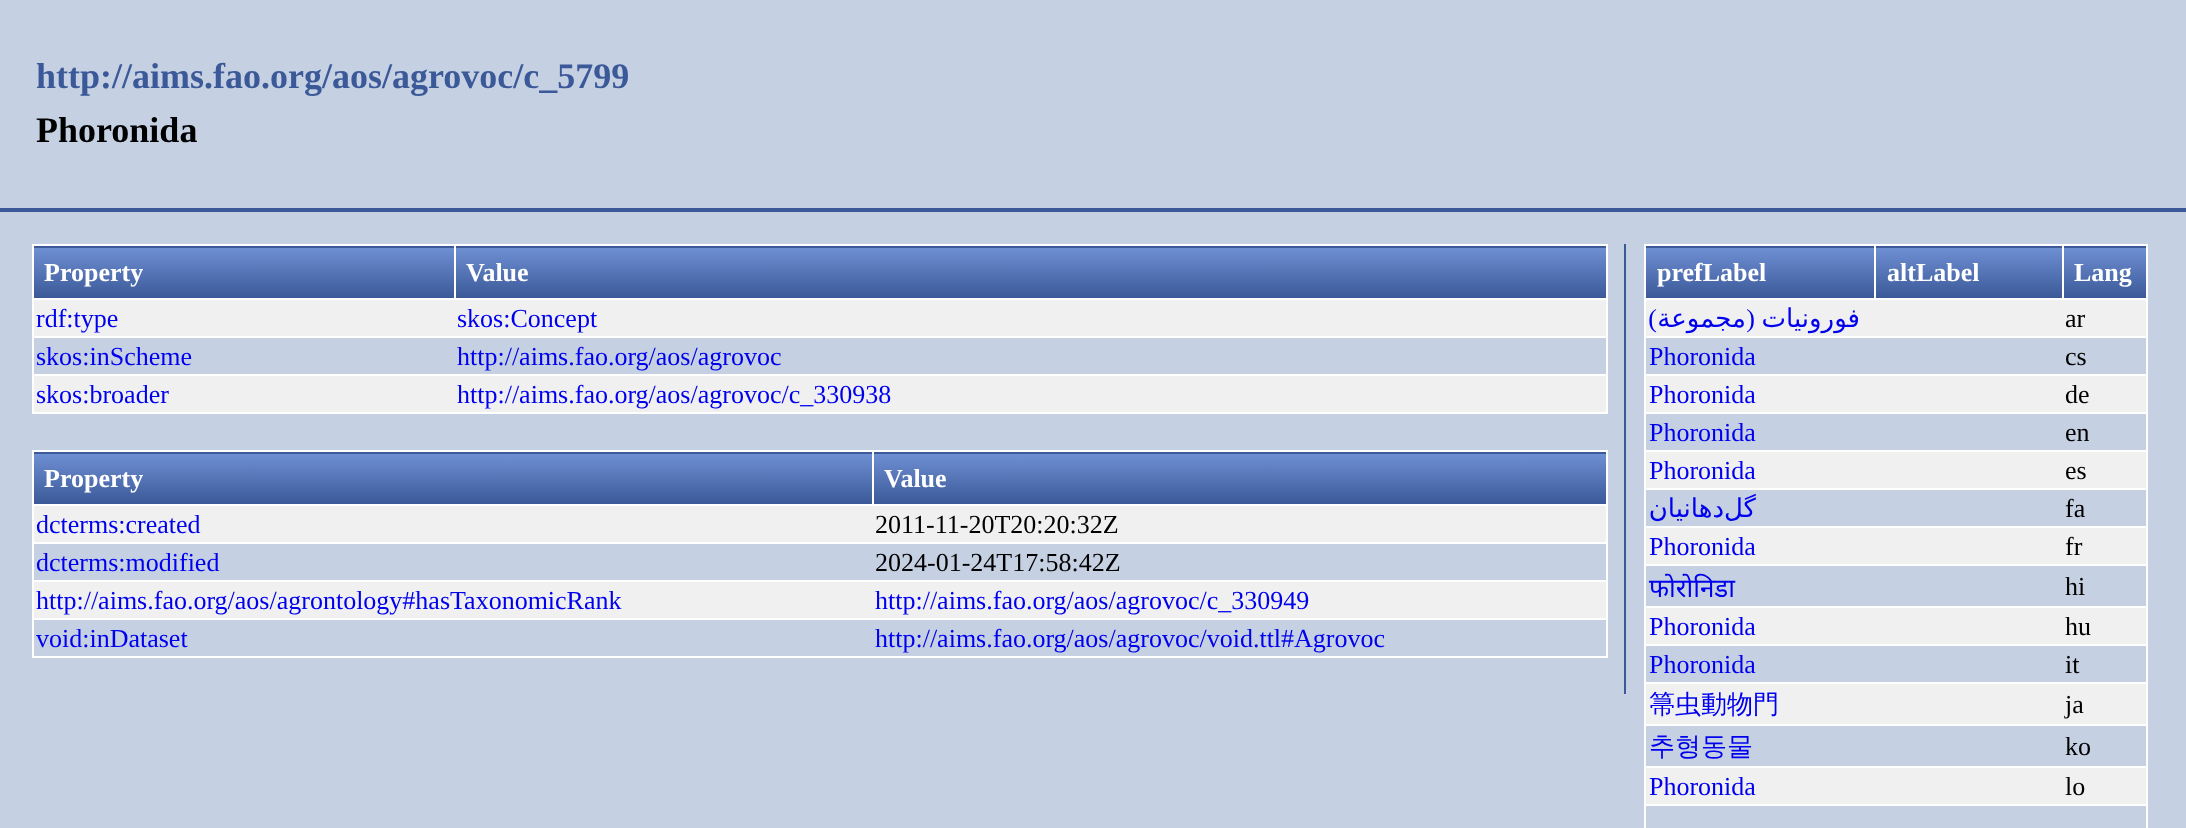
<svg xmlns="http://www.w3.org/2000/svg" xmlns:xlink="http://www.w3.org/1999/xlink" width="2186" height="828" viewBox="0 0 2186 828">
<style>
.cls-1{font:bold 36px Liberation Serif;fill:#3b5998}
.cls-2{font:bold 36px Liberation Serif;fill:#000000}
.cls-3{font:bold 26px Liberation Serif;fill:#ffffff}
.cls-4{font:26px Liberation Serif;fill:#0000ee}
.cls-5{font:26px Liberation Serif;fill:#000000}
.cls-6{font:26px Liberation Serif;direction:rtl;fill:#0000ee}
.cls-7{font:26px DejaVu Sans;direction:rtl;fill:#0000ee}
.cls-8{font:26px Noto Sans;fill:#0000ee}
.cls-9{font:500 26px WenQuanYi Zen Hei;fill:#0000ee}
</style>
<defs>
<linearGradient id="g1" gradientUnits="userSpaceOnUse" x1="245" y1="198" x2="245" y2="248"><stop offset="0" stop-color="#6e8fd3"/><stop offset="1" stop-color="#3b5998"/></linearGradient>
<linearGradient id="g2" gradientUnits="userSpaceOnUse" x1="245" y1="248" x2="245" y2="298"><stop offset="0" stop-color="#6e8fd3"/><stop offset="1" stop-color="#3b5998"/></linearGradient>
<linearGradient id="g3" gradientUnits="userSpaceOnUse" x1="1031" y1="198" x2="1031" y2="248"><stop offset="0" stop-color="#6e8fd3"/><stop offset="1" stop-color="#3b5998"/></linearGradient>
<linearGradient id="g4" gradientUnits="userSpaceOnUse" x1="1031" y1="248" x2="1031" y2="298"><stop offset="0" stop-color="#6e8fd3"/><stop offset="1" stop-color="#3b5998"/></linearGradient>
<linearGradient id="g5" gradientUnits="userSpaceOnUse" x1="454" y1="404" x2="454" y2="454"><stop offset="0" stop-color="#6e8fd3"/><stop offset="1" stop-color="#3b5998"/></linearGradient>
<linearGradient id="g6" gradientUnits="userSpaceOnUse" x1="454" y1="454" x2="454" y2="504"><stop offset="0" stop-color="#6e8fd3"/><stop offset="1" stop-color="#3b5998"/></linearGradient>
<linearGradient id="g7" gradientUnits="userSpaceOnUse" x1="1240" y1="404" x2="1240" y2="454"><stop offset="0" stop-color="#6e8fd3"/><stop offset="1" stop-color="#3b5998"/></linearGradient>
<linearGradient id="g8" gradientUnits="userSpaceOnUse" x1="1240" y1="454" x2="1240" y2="504"><stop offset="0" stop-color="#6e8fd3"/><stop offset="1" stop-color="#3b5998"/></linearGradient>
<linearGradient id="g9" gradientUnits="userSpaceOnUse" x1="2105" y1="198" x2="2105" y2="248"><stop offset="0" stop-color="#6e8fd3"/><stop offset="1" stop-color="#3b5998"/></linearGradient>
<linearGradient id="g10" gradientUnits="userSpaceOnUse" x1="1761" y1="198" x2="1761" y2="248"><stop offset="0" stop-color="#6e8fd3"/><stop offset="1" stop-color="#3b5998"/></linearGradient>
<linearGradient id="g11" gradientUnits="userSpaceOnUse" x1="1761" y1="248" x2="1761" y2="298"><stop offset="0" stop-color="#6e8fd3"/><stop offset="1" stop-color="#3b5998"/></linearGradient>
<linearGradient id="g12" gradientUnits="userSpaceOnUse" x1="1969" y1="198" x2="1969" y2="248"><stop offset="0" stop-color="#6e8fd3"/><stop offset="1" stop-color="#3b5998"/></linearGradient>
<linearGradient id="g13" gradientUnits="userSpaceOnUse" x1="1969" y1="248" x2="1969" y2="298"><stop offset="0" stop-color="#6e8fd3"/><stop offset="1" stop-color="#3b5998"/></linearGradient>
<linearGradient id="g14" gradientUnits="userSpaceOnUse" x1="2105" y1="248" x2="2105" y2="298"><stop offset="0" stop-color="#6e8fd3"/><stop offset="1" stop-color="#3b5998"/></linearGradient>
</defs>
<rect width="100%" height="100%" fill="#c5d1e2"/>
<rect fill="#3b5998" x="0" y="208" width="2186" height="4"/>
<rect fill="#3b5998" x="1624" y="244" width="2" height="450"/>
<rect fill="#ffffff" x="32" y="244" width="1576" height="2"/>
<rect fill="#ffffff" x="1606" y="244" width="2" height="170"/>
<rect fill="#ffffff" x="32" y="412" width="1576" height="2"/>
<rect fill="#ffffff" x="32" y="244" width="2" height="170"/>
<rect fill="url(#g1)" x="34" y="246" width="422" height="2"/>
<rect fill="url(#g2)" x="34" y="248" width="420" height="50"/>
<rect fill="url(#g3)" x="456" y="246" width="1150" height="2"/>
<rect fill="url(#g4)" x="456" y="248" width="1150" height="50"/>
<rect fill="#ffffff" x="32" y="298" width="1576" height="2"/>
<rect fill="#ffffff" x="454" y="244" width="2" height="56"/>
<rect fill="#f0f0f0" x="34" y="300" width="1572" height="36"/>
<rect fill="#ffffff" x="32" y="336" width="1576" height="2"/>
<rect fill="#f0f0f0" x="34" y="376" width="1572" height="36"/>
<rect fill="#ffffff" x="32" y="374" width="1576" height="2"/>
<rect fill="#ffffff" x="32" y="450" width="1576" height="2"/>
<rect fill="#ffffff" x="1606" y="450" width="2" height="208"/>
<rect fill="#ffffff" x="32" y="656" width="1576" height="2"/>
<rect fill="#ffffff" x="32" y="450" width="2" height="208"/>
<rect fill="url(#g5)" x="34" y="452" width="840" height="2"/>
<rect fill="url(#g6)" x="34" y="454" width="838" height="50"/>
<rect fill="url(#g7)" x="874" y="452" width="732" height="2"/>
<rect fill="url(#g8)" x="874" y="454" width="732" height="50"/>
<rect fill="#ffffff" x="32" y="504" width="1576" height="2"/>
<rect fill="#ffffff" x="872" y="450" width="2" height="56"/>
<rect fill="#f0f0f0" x="34" y="506" width="1572" height="36"/>
<rect fill="#ffffff" x="32" y="542" width="1576" height="2"/>
<rect fill="#f0f0f0" x="34" y="582" width="1572" height="36"/>
<rect fill="#ffffff" x="32" y="580" width="1576" height="2"/>
<rect fill="#ffffff" x="32" y="618" width="1576" height="2"/>
<rect fill="#ffffff" x="1644" y="244" width="504" height="2"/>
<rect fill="url(#g9)" x="2062" y="246" width="86" height="2"/>
<rect fill="#ffffff" x="2146" y="244" width="2" height="584"/>
<rect fill="#ffffff" x="1644" y="244" width="2" height="584"/>
<rect fill="url(#g10)" x="1646" y="246" width="230" height="2"/>
<rect fill="url(#g11)" x="1646" y="248" width="228" height="50"/>
<rect fill="url(#g12)" x="1876" y="246" width="186" height="2"/>
<rect fill="url(#g13)" x="1876" y="248" width="186" height="50"/>
<rect fill="#ffffff" x="1644" y="298" width="504" height="2"/>
<rect fill="#ffffff" x="1874" y="244" width="2" height="56"/>
<rect fill="url(#g14)" x="2064" y="248" width="82" height="50"/>
<rect fill="#ffffff" x="2062" y="244" width="2" height="56"/>
<rect fill="#f0f0f0" x="1646" y="300" width="500" height="36"/>
<rect fill="#ffffff" x="1644" y="336" width="504" height="2"/>
<rect fill="#f0f0f0" x="1646" y="376" width="500" height="36"/>
<rect fill="#ffffff" x="1644" y="374" width="504" height="2"/>
<rect fill="#ffffff" x="1644" y="412" width="504" height="2"/>
<rect fill="#f0f0f0" x="1646" y="452" width="500" height="36"/>
<rect fill="#ffffff" x="1644" y="450" width="504" height="2"/>
<rect fill="#ffffff" x="1644" y="488" width="504" height="2"/>
<rect fill="#f0f0f0" x="1646" y="528" width="500" height="36"/>
<rect fill="#ffffff" x="1644" y="526" width="504" height="2"/>
<rect fill="#ffffff" x="1644" y="564" width="504" height="2"/>
<rect fill="#f0f0f0" x="1646" y="608" width="500" height="36"/>
<rect fill="#ffffff" x="1644" y="606" width="504" height="2"/>
<rect fill="#ffffff" x="1644" y="644" width="504" height="2"/>
<rect fill="#f0f0f0" x="1646" y="684" width="500" height="40"/>
<rect fill="#ffffff" x="1644" y="682" width="504" height="2"/>
<rect fill="#ffffff" x="1644" y="724" width="504" height="2"/>
<rect fill="#f0f0f0" x="1646" y="768" width="500" height="36"/>
<rect fill="#ffffff" x="1644" y="766" width="504" height="2"/>
<rect fill="#ffffff" x="1644" y="804" width="504" height="2"/>
<text class="cls-1" x="36" y="88">http://aims.fao.org/aos/agrovoc/c_5799</text>
<text class="cls-2" x="36" y="142">Phoronida</text>
<text class="cls-3" x="44" y="281">Property</text>
<text class="cls-3" x="466" y="281">Value</text>
<text class="cls-4" x="36" y="327">rdf:type</text>
<text class="cls-4" x="457" y="327">skos:Concept</text>
<text class="cls-4" x="36" y="365">skos:inScheme</text>
<text class="cls-4" x="457" y="365">http://aims.fao.org/aos/agrovoc</text>
<text class="cls-4" x="36" y="403">skos:broader</text>
<text class="cls-4" x="457" y="403">http://aims.fao.org/aos/agrovoc/c_330938</text>
<text class="cls-3" x="44" y="487">Property</text>
<text class="cls-3" x="884" y="487">Value</text>
<text class="cls-4" x="36" y="533">dcterms:created</text>
<text class="cls-5" x="875" y="533">2011-11-20T20:20:32Z</text>
<text class="cls-4" x="36" y="571">dcterms:modified</text>
<text class="cls-5" x="875" y="571">2024-01-24T17:58:42Z</text>
<text class="cls-4" x="36" y="609">http://aims.fao.org/aos/agrontology#hasTaxonomicRank</text>
<text class="cls-4" x="875" y="609">http://aims.fao.org/aos/agrovoc/c_330949</text>
<text class="cls-4" x="36" y="647">void:inDataset</text>
<text class="cls-4" x="875" y="647">http://aims.fao.org/aos/agrovoc/void.ttl#Agrovoc</text>
<text class="cls-3" x="1657" y="281">prefLabel</text>
<text class="cls-3" x="1887" y="281">altLabel</text>
<text class="cls-3" x="2074" y="281">Lang</text>
<text class="cls-6" x="1657" y="327">)</text>
<text class="cls-7" x="1746" y="327">مجموعة</text>
<text class="cls-6" x="1755" y="327">(</text>
<text class="cls-7" x="1860" y="327">فورونيات</text>
<text class="cls-5" x="2065" y="327">ar</text>
<text class="cls-4" x="1649" y="365">Phoronida</text>
<text class="cls-5" x="2065" y="365">cs</text>
<text class="cls-4" x="1649" y="403">Phoronida</text>
<text class="cls-5" x="2065" y="403">de</text>
<text class="cls-4" x="1649" y="441">Phoronida</text>
<text class="cls-5" x="2065" y="441">en</text>
<text class="cls-4" x="1649" y="479">Phoronida</text>
<text class="cls-5" x="2065" y="479">es</text>
<text class="cls-7" x="1724" y="517">دهانیان</text>
<text class="cls-7" x="1756" y="517">گل</text>
<text class="cls-5" x="2065" y="517">fa</text>
<text class="cls-4" x="1649" y="555">Phoronida</text>
<text class="cls-5" x="2065" y="555">fr</text>
<text class="cls-8" x="1649" y="597">फोरोनिडा</text>
<text class="cls-5" x="2065" y="595">hi</text>
<text class="cls-4" x="1649" y="635">Phoronida</text>
<text class="cls-5" x="2065" y="635">hu</text>
<text class="cls-4" x="1649" y="673">Phoronida</text>
<text class="cls-5" x="2065" y="673">it</text>
<text class="cls-9" x="1649" y="713">箒虫動物門</text>
<text class="cls-5" x="2065" y="713">ja</text>
<text class="cls-9" x="1649" y="755">추형동물</text>
<text class="cls-5" x="2065" y="755">ko</text>
<text class="cls-4" x="1649" y="795">Phoronida</text>
<text class="cls-5" x="2065" y="795">lo</text>
</svg>
